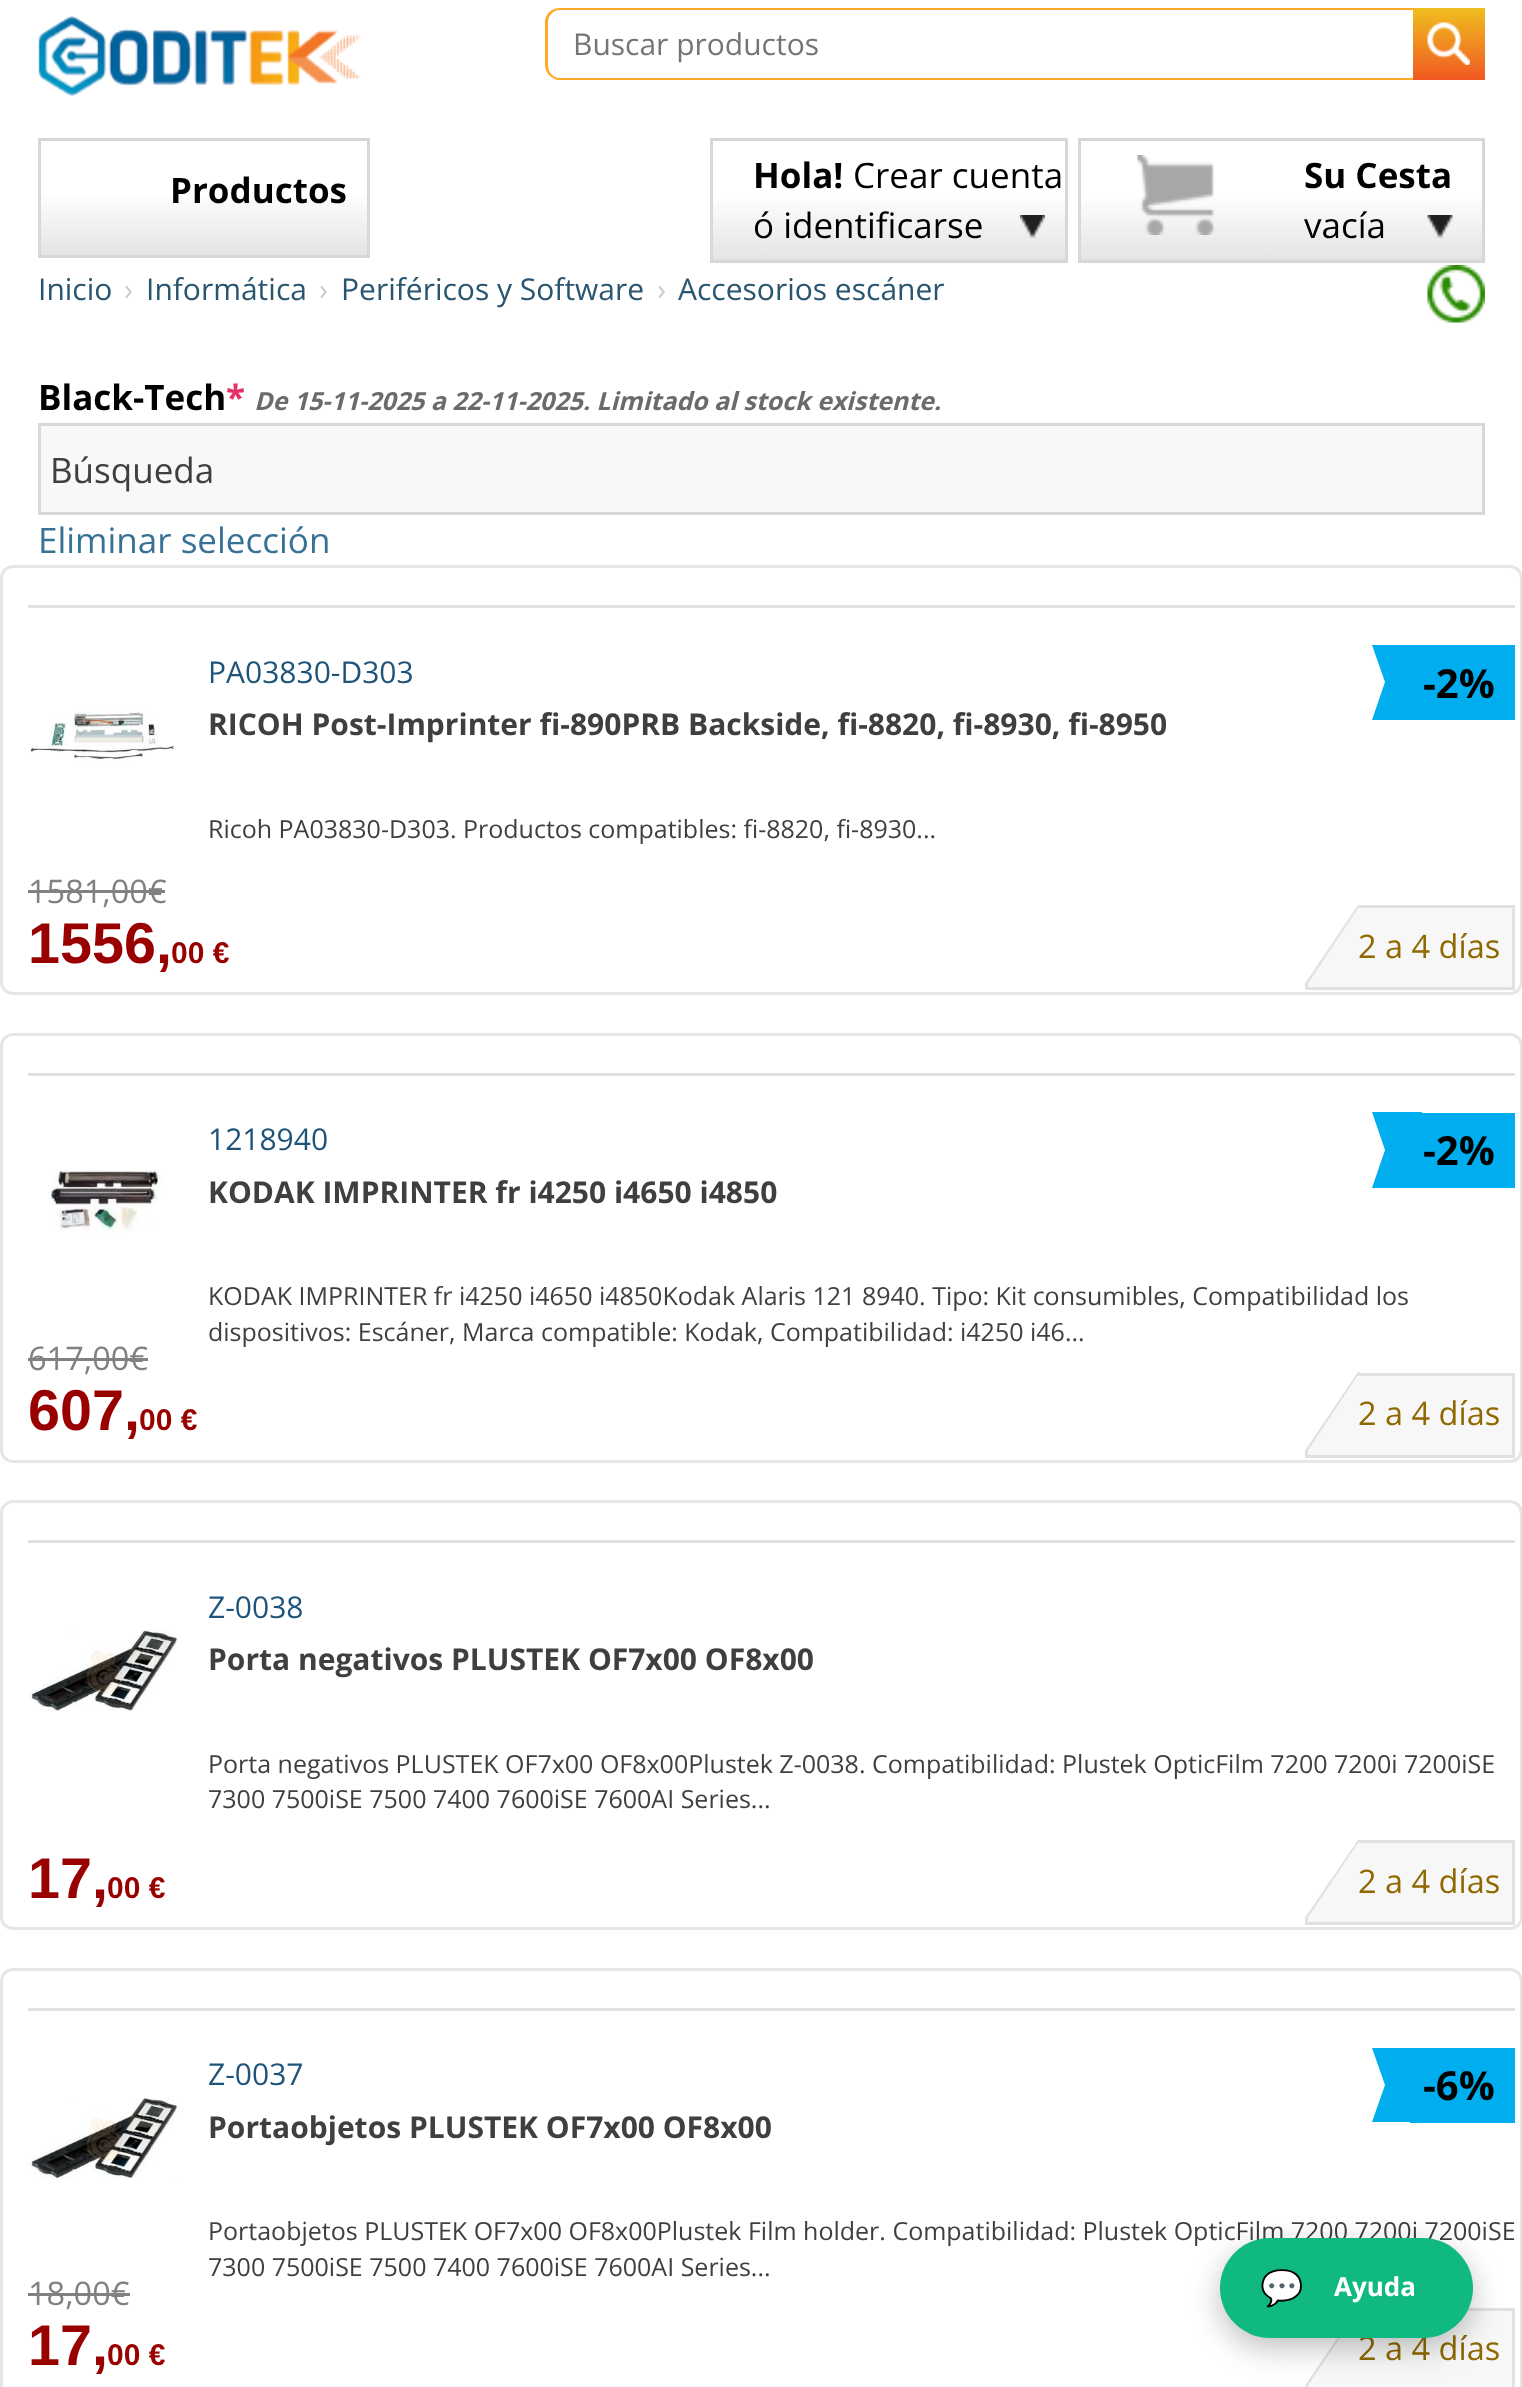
<svg xmlns="http://www.w3.org/2000/svg" xmlns:xlink="http://www.w3.org/1999/xlink" width="1522" height="2387" viewBox="0 0 1522 2387">
<style>
.cls-1{font:30px Open Sans;fill:#757575}
.cls-2{font:bold 35px Open Sans;fill:#000000}
.cls-3{font:35px Open Sans;fill:#000000}
.cls-4{font:30px Open Sans;fill:#295570}
.cls-5{font:30px Open Sans;fill:#cccccc}
.cls-6{font:bold 35px Open Sans;fill:#e73068}
.cls-7{font:italic bold 25px Open Sans;fill:#6b6b6b}
.cls-8{font:35px Open Sans;fill:#3f3f3f}
.cls-9{font:35px Open Sans;fill:#377195}
.cls-10{font:30px Open Sans;fill:#1f547a}
.cls-11{font:bold 40px Open Sans;fill:#000000}
.cls-12{font:bold 30px Open Sans;fill:#3f3f3f}
.cls-13{font:25px Open Sans;fill:#3f3f3f}
.cls-14{font:32.5px Open Sans;fill:#818181}
.cls-15{font:bold 57.5px Liberation Sans;fill:#990000}
.cls-16{font:bold 30px Liberation Sans;fill:#990000}
.cls-17{font:32.5px Open Sans;fill:#8f6900}
.cls-18{font:35px Noto Color Emoji;fill:#ffffff}
.cls-19{font:bold 26px Open Sans;fill:#ffffff}
</style>
<defs>
<linearGradient id="g1" gradientUnits="userSpaceOnUse" x1="1449" y1="7.5" x2="1449" y2="80"><stop offset="0" stop-color="#efbf1f"/><stop offset="1" stop-color="#f15822"/></linearGradient>
<linearGradient id="g2" gradientUnits="userSpaceOnUse" x1="204" y1="140" x2="204" y2="255"><stop offset="0.44" stop-color="#ffffff"/><stop offset="1" stop-color="#e3e4e4"/></linearGradient>
<linearGradient id="g3" gradientUnits="userSpaceOnUse" x1="889" y1="140" x2="889" y2="260"><stop offset="0.44" stop-color="#ffffff"/><stop offset="1" stop-color="#e3e4e4"/></linearGradient>
<linearGradient id="g4" gradientUnits="userSpaceOnUse" x1="1281" y1="140" x2="1281" y2="260"><stop offset="0.44" stop-color="#ffffff"/><stop offset="1" stop-color="#e3e4e4"/></linearGradient>
</defs>
<rect width="100%" height="100%" fill="#ffffff"/>
<image xlink:href="image0.png" x="38" y="16" width="323" height="80"/>
<path fill="#ffa928" fill-rule="evenodd" d="M560 8H1470C1478 8 1485 14 1485 22V65C1485 73 1478 80 1470 80H560C552 80 545 73 545 65V22C545 14 552 8 560 8ZM560 10H1470C1478 10 1485 16 1485 22V65C1485 72 1478 78 1470 78H560C553 78 548 72 548 65V22C548 16 553 10 560 10Z"/>
<rect fill="url(#g1)" x="1413" y="8" width="72" height="72"/>
<image xlink:href="image1.png" x="1427" y="22" width="43" height="43"/>
<rect fill="url(#g2)" x="41" y="196" width="326" height="59"/>
<rect fill="none" stroke="#d7d7d7" stroke-width="3" x="39.5" y="139.5" width="329" height="117"/>
<rect fill="url(#g3)" x="713" y="199" width="352" height="61"/>
<rect fill="none" stroke="#d7d7d7" stroke-width="3" x="711.5" y="139.5" width="355" height="122"/>
<image xlink:href="image2.png" x="1020" y="215" width="25" height="23"/>
<rect fill="url(#g4)" x="1081" y="199" width="401" height="61"/>
<rect fill="none" stroke="#d7d7d7" stroke-width="3" x="1079.5" y="139.5" width="404" height="122"/>
<image xlink:href="image3.png" x="1137" y="155" width="78" height="80"/>
<image xlink:href="image4.png" x="1427" y="215" width="26" height="23"/>
<image xlink:href="image5.png" x="1427" y="265" width="58" height="58"/>
<rect fill="#f8f8f8" stroke="#d8d8d8" stroke-width="3" x="39.5" y="424.5" width="1444" height="89"/>
<rect fill="none" stroke="#e6e6e6" stroke-width="3" x="1.5" y="566.5" width="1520" height="427" rx="11.5"/>
<rect fill="#e1e1e1" x="28" y="605" width="1487" height="3"/>
<rect fill="#00aeef" x="1423" y="645" width="92" height="75"/>
<path fill="#00aeef" d="M1372 645H1422L1410 682H1385Z"/>
<rect fill="#00aeef" x="1410" y="645" width="13" height="75"/>
<path fill="#00aeef" d="M1422 720H1372L1385 682H1410Z"/>
<image xlink:href="image6.png" x="30" y="711" width="146" height="50"/>
<rect fill="#818181" x="28" y="890" width="137" height="3"/>
<rect fill="#f7f7f7" stroke="#e1e1e1" stroke-width="3" x="1306.5" y="906.5" width="207" height="82"/>
<rect fill="none" stroke="#e6e6e6" stroke-width="3" x="1.5" y="1034.5" width="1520" height="427" rx="11.5"/>
<rect fill="#e1e1e1" x="28" y="1073" width="1487" height="3"/>
<rect fill="#00aeef" x="1423" y="1113" width="92" height="75"/>
<path fill="#00aeef" d="M1372 1112H1422L1410 1150H1385Z"/>
<rect fill="#00aeef" x="1410" y="1113" width="13" height="75"/>
<path fill="#00aeef" d="M1422 1188H1372L1385 1150H1410Z"/>
<image xlink:href="image7.png" x="48" y="1170" width="115" height="64"/>
<rect fill="#818181" x="28" y="1358" width="120" height="3"/>
<rect fill="#f7f7f7" stroke="#e1e1e1" stroke-width="3" x="1306.5" y="1374.5" width="207" height="82"/>
<rect fill="none" stroke="#e6e6e6" stroke-width="3" x="1.5" y="1501.5" width="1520" height="427" rx="11.5"/>
<rect fill="#e1e1e1" x="28" y="1540" width="1487" height="3"/>
<image xlink:href="image8.png" x="27" y="1630" width="151" height="81"/>
<rect fill="#f7f7f7" stroke="#e1e1e1" stroke-width="3" x="1306.5" y="1841.5" width="207" height="82"/>
<rect fill="none" stroke="#e6e6e6" stroke-width="3" x="1.5" y="1969.5" width="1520" height="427" rx="11.5"/>
<rect fill="#e1e1e1" x="28" y="2008" width="1487" height="3"/>
<rect fill="#00aeef" x="1423" y="2048" width="92" height="75"/>
<path fill="#00aeef" d="M1372 2048H1422L1410 2085H1385Z"/>
<rect fill="#00aeef" x="1410" y="2048" width="13" height="75"/>
<path fill="#00aeef" d="M1422 2122H1372L1385 2085H1410Z"/>
<image xlink:href="image9.png" x="27" y="2097" width="151" height="82"/>
<rect fill="#818181" x="28" y="2293" width="102" height="3"/>
<rect fill="#f7f7f7" stroke="#e1e1e1" stroke-width="3" x="1306.5" y="2309.5" width="207" height="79"/>
<text class="cls-1" x="573" y="55">Buscar productos</text>
<text class="cls-2" x="170" y="203">Productos</text>
<text class="cls-2" x="753" y="188">Hola!</text>
<text class="cls-3" x="853" y="188">Crear cuenta</text>
<text class="cls-3" x="753" y="238">ó identificarse</text>
<text class="cls-2" x="1304" y="188">Su Cesta</text>
<text class="cls-3" x="1304" y="238">vacía</text>
<text class="cls-4" x="38" y="300">Inicio</text>
<text class="cls-5" x="124" y="300">›</text>
<text class="cls-4" x="146" y="300">Informática</text>
<text class="cls-5" x="319" y="300">›</text>
<text class="cls-4" x="341" y="300">Periféricos y Software</text>
<text class="cls-5" x="657" y="300">›</text>
<text class="cls-4" x="678" y="300">Accesorios escáner</text>
<text class="cls-2" x="38" y="410">Black-Tech</text>
<text class="cls-6" x="226" y="410">*</text>
<text class="cls-7" x="254" y="410">De 15-11-2025 a 22-11-2025. Limitado al stock existente.</text>
<text class="cls-8" x="50" y="483">Búsqueda</text>
<text class="cls-9" x="38" y="553">Eliminar selección</text>
<text class="cls-10" x="208" y="683">PA03830-D303</text>
<text class="cls-11" x="1423" y="698">-2%</text>
<text class="cls-12" x="208" y="735">RICOH Post-Imprinter fi-890PRB Backside, fi-8820, fi-8930, fi-8950</text>
<text class="cls-13" x="208" y="838">Ricoh PA03830-D303. Productos compatibles: fi-8820, fi-8930...</text>
<text class="cls-14" x="28" y="903">1581,00€</text>
<text class="cls-15" x="28" y="963">1556,</text>
<text class="cls-16" x="171" y="963">00 €</text>
<text class="cls-17" x="1358" y="958">2 a 4 días</text>
<path fill="#e1e1e1" d="M1305 905H1360L1305 988Z"/>
<path fill="#ffffff" d="M1302 905H1358L1302 988Z"/>
<text class="cls-10" x="208" y="1150">1218940</text>
<text class="cls-11" x="1423" y="1165">-2%</text>
<text class="cls-12" x="208" y="1203">KODAK IMPRINTER fr i4250 i4650 i4850</text>
<text class="cls-13"><tspan x="208" y="1305">KODAK IMPRINTER fr i4250 i4650 i4850Kodak Alaris 121 8940. Tipo: Kit consumibles, Compatibilidad los</tspan><tspan x="208" y="1341">dispositivos: Escáner, Marca compatible: Kodak, Compatibilidad: i4250 i46...</tspan></text>
<text class="cls-14" x="28" y="1370">617,00€</text>
<text class="cls-15" x="28" y="1430">607,</text>
<text class="cls-16" x="139" y="1430">00 €</text>
<text class="cls-17" x="1358" y="1425">2 a 4 días</text>
<path fill="#e1e1e1" d="M1305 1372H1360L1305 1455Z"/>
<path fill="#ffffff" d="M1302 1372H1358L1302 1455Z"/>
<text class="cls-10" x="208" y="1618">Z-0038</text>
<text class="cls-12" x="208" y="1670">Porta negativos PLUSTEK OF7x00 OF8x00</text>
<text class="cls-13"><tspan x="208" y="1773">Porta negativos PLUSTEK OF7x00 OF8x00Plustek Z-0038. Compatibilidad: Plustek OpticFilm 7200 7200i 7200iSE</tspan><tspan x="208" y="1808">7300 7500iSE 7500 7400 7600iSE 7600AI Series...</tspan></text>
<text class="cls-15" x="28" y="1898">17,</text>
<text class="cls-16" x="107" y="1898">00 €</text>
<text class="cls-17" x="1358" y="1893">2 a 4 días</text>
<path fill="#e1e1e1" d="M1305 1840H1360L1305 1922Z"/>
<path fill="#ffffff" d="M1302 1840H1358L1302 1922Z"/>
<text class="cls-10" x="208" y="2085">Z-0037</text>
<text class="cls-11" x="1423" y="2100">-6%</text>
<text class="cls-12" x="208" y="2138">Portaobjetos PLUSTEK OF7x00 OF8x00</text>
<text class="cls-13"><tspan x="208" y="2240">Portaobjetos PLUSTEK OF7x00 OF8x00Plustek Film holder. Compatibilidad: Plustek OpticFilm 7200 7200i 7200iSE</tspan><tspan x="208" y="2276">7300 7500iSE 7500 7400 7600iSE 7600AI Series...</tspan></text>
<text class="cls-14" x="28" y="2305">18,00€</text>
<text class="cls-15" x="28" y="2365">17,</text>
<text class="cls-16" x="107" y="2365">00 €</text>
<text class="cls-17" x="1358" y="2360">2 a 4 días</text>
<path fill="#e1e1e1" d="M1305 2308H1360L1305 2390Z"/>
<path fill="#ffffff" d="M1302 2308H1358L1302 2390Z"/>
<rect fill="#000000" fill-opacity="0.25" filter="blur(15px)" x="1220" y="2248" width="253" height="100" rx="50"/>
<rect fill="#10b981" x="1220" y="2238" width="253" height="100" rx="50"/>
<text class="cls-18" x="1260" y="2300">💬</text>
<text class="cls-19" x="1334" y="2296">Ayuda</text>
</svg>
